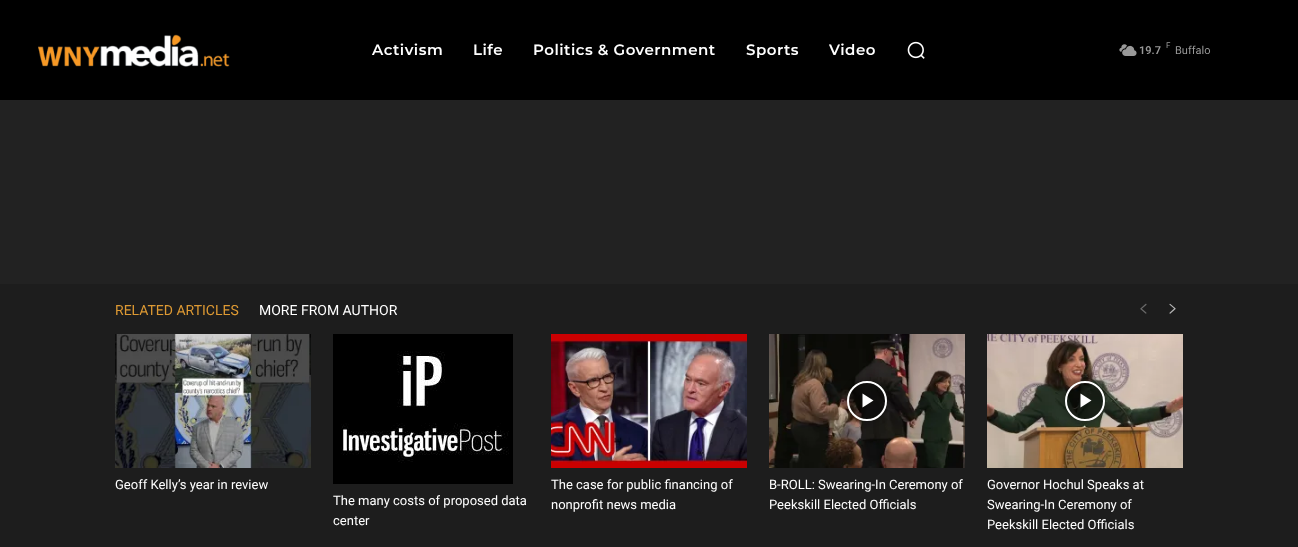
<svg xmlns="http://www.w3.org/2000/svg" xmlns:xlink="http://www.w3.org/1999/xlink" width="1298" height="547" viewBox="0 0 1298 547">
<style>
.cls-1{font:600 15px Montserrat;letter-spacing:0.5px;fill:#ffffff}
.cls-2{font:8px Roboto;fill:#999999}
.cls-3{font:600 11px Roboto;fill:#999999}
.cls-4{font:11px Roboto;fill:#999999}
.cls-5{font:14px Roboto;fill:#dd9933}
.cls-6{font:14px Roboto;fill:#ffffff}
.cls-7{font:13px Roboto;fill:#ffffff}
</style>
<defs>
<clipPath id="clip1"><path d="M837 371H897V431H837ZM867 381C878 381 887 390 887 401C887 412 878 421 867 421C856 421 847 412 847 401C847 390 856 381 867 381Z" clip-rule="evenodd"/></clipPath>
<clipPath id="clip2"><path d="M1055 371H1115V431H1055ZM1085 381C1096 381 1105 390 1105 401C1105 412 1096 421 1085 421C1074 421 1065 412 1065 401C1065 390 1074 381 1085 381Z" clip-rule="evenodd"/></clipPath>
</defs>
<rect width="100%" height="100%" fill="#222222"/>
<rect fill="#000000" x="0" y="0" width="1298" height="100"/>
<image xlink:href="image0.png" x="38" y="34" width="192" height="33"/>
<image xlink:href="image1.png" x="907" y="41" width="18" height="18"/>
<image xlink:href="image2.png" x="1119" y="44" width="18" height="12"/>
<rect fill="#1d1d1d" x="0" y="284" width="1298" height="263"/>
<image xlink:href="image3.png" x="1140" y="303" width="7" height="11"/>
<image xlink:href="image4.png" x="1169" y="303" width="7" height="11"/>
<image xlink:href="image5.png" x="115" y="334" width="196" height="134"/>
<image xlink:href="image6.png" x="333" y="334" width="180" height="150"/>
<image xlink:href="image7.png" x="551" y="334" width="196" height="134"/>
<image xlink:href="image8.png" x="769" y="334" width="196" height="134"/>
<g clip-path="url(#clip1)">
<rect fill="#000000" fill-opacity="0.4" filter="blur(3px)" x="847" y="381" width="40" height="40" rx="20"/>
</g>
<circle fill="#000000" fill-opacity="0.48" stroke="#ffffff" stroke-width="2" cx="867" cy="401" r="19"/>
<path fill="#ffffff" d="M862.5 393.5V407.5L873.5 400.5Z"/>
<image xlink:href="image9.png" x="987" y="334" width="196" height="134"/>
<g clip-path="url(#clip2)">
<rect fill="#000000" fill-opacity="0.4" filter="blur(3px)" x="1065" y="381" width="40" height="40" rx="20"/>
</g>
<circle fill="#000000" fill-opacity="0.48" stroke="#ffffff" stroke-width="2" cx="1085" cy="401" r="19"/>
<path fill="#ffffff" d="M1080.5 393.5V407.5L1091.5 400.5Z"/>
<text class="cls-1" x="372" y="55">Activism</text>
<text class="cls-1" x="473" y="55">Life</text>
<text class="cls-1" x="533" y="55">Politics &amp; Government</text>
<text class="cls-1" x="746" y="55">Sports</text>
<text class="cls-1" x="829" y="55">Video</text>
<text class="cls-2" x="1166" y="48">F</text>
<text class="cls-3" x="1139" y="54">19.7</text>
<text class="cls-4" x="1175" y="54">Buffalo</text>
<text class="cls-5" x="115" y="315">RELATED ARTICLES</text>
<text class="cls-6" x="259" y="315">MORE FROM AUTHOR</text>
<text class="cls-7" x="115" y="489">Geoff Kelly’s year in review</text>
<text class="cls-7"><tspan x="333" y="505">The many costs of proposed data</tspan><tspan x="333" y="525">center</tspan></text>
<text class="cls-7"><tspan x="551" y="489">The case for public financing of</tspan><tspan x="551" y="509">nonprofit news media</tspan></text>
<text class="cls-7"><tspan x="769" y="489">B-ROLL: Swearing-In Ceremony of</tspan><tspan x="769" y="509">Peekskill Elected Officials</tspan></text>
<text class="cls-7"><tspan x="987" y="489">Governor Hochul Speaks at</tspan><tspan x="987" y="509">Swearing-In Ceremony of</tspan><tspan x="987" y="529">Peekskill Elected Officials</tspan></text>
</svg>
